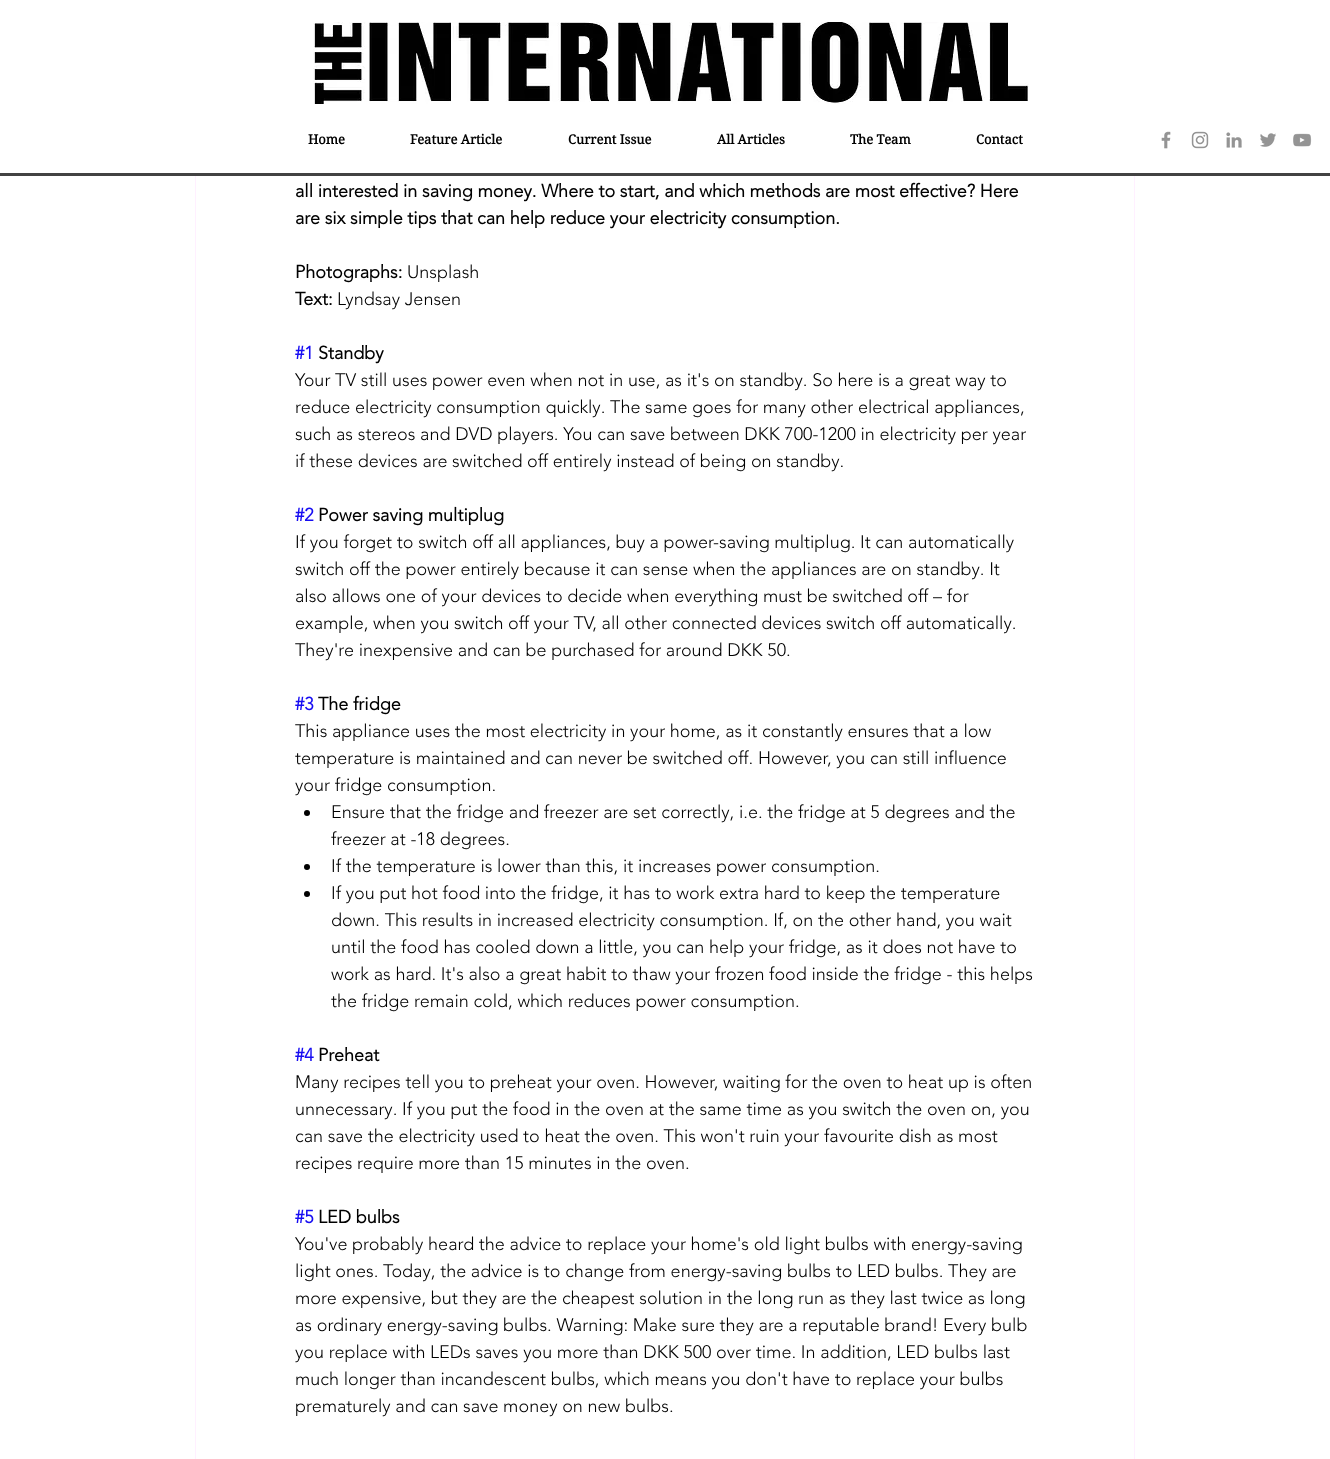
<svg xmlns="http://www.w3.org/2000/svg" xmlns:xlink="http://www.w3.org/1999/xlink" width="1330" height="1459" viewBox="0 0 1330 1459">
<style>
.cls-1{font:bold 13px 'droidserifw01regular';fill:#000000}
.cls-2{font:bold 18px 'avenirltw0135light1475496';fill:#000000}
.cls-3{font:300 18px 'avenirltw0135light1475496';fill:#000000}
.cls-4{font:bold 18px 'avenirltw0135light1475496';fill:#170df2}
</style>
<rect width="100%" height="100%" fill="#ffffff"/>
<rect fill="none" stroke="#fff0ff" x="195.5" y="-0.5" width="939" height="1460"/>
<rect fill="#ffffff" x="195" y="0" width="940" height="173"/>
<image xlink:href="image0.png" x="313" y="22" width="716" height="82"/>
<image xlink:href="image1.png" x="1161" y="131" width="10" height="18"/>
<image xlink:href="image2.png" x="1191" y="131" width="18" height="18"/>
<image xlink:href="image3.png" x="1226" y="132" width="16" height="16"/>
<image xlink:href="image4.png" x="1260" y="133" width="16" height="14"/>
<image xlink:href="image5.png" x="1293" y="133" width="19" height="14"/>
<rect fill="#424242" x="0" y="173" width="1330" height="3"/>
<circle fill="#000000" cx="307" cy="813" r="3"/>
<circle fill="#000000" cx="307" cy="867" r="3"/>
<circle fill="#000000" cx="307" cy="894" r="3"/>
<text class="cls-1" x="308" y="144">Home</text>
<text class="cls-1" x="410" y="144">Feature Article</text>
<text class="cls-1" x="568" y="144">Current Issue</text>
<text class="cls-1" x="717" y="144">All Articles</text>
<text class="cls-1" x="850" y="144">The Team</text>
<text class="cls-1" x="976" y="144">Contact</text>
<text class="cls-2"><tspan x="295" y="197">all interested in saving money. Where to start, and which methods are most effective? Here</tspan><tspan x="295" y="224">are six simple tips that can help reduce your electricity consumption.</tspan></text>
<text class="cls-2" x="295" y="278">Photographs:</text>
<text class="cls-3" x="407" y="278">Unsplash</text>
<text class="cls-2" x="295" y="305">Text:</text>
<text class="cls-3" x="337" y="305">Lyndsay Jensen</text>
<text class="cls-4" x="295" y="359">#1</text>
<text class="cls-2" x="318" y="359">Standby</text>
<text class="cls-3"><tspan x="295" y="386">Your TV still uses power even when not in use, as it's on standby. So here is a great way to</tspan><tspan x="295" y="413">reduce electricity consumption quickly. The same goes for many other electrical appliances,</tspan><tspan x="295" y="440">such as stereos and DVD players. You can save between DKK 700-1200 in electricity per year</tspan><tspan x="295" y="467">if these devices are switched off entirely instead of being on standby.</tspan></text>
<text class="cls-4" x="295" y="521">#2</text>
<text class="cls-2" x="318" y="521">Power saving multiplug</text>
<text class="cls-3"><tspan x="295" y="548">If you forget to switch off all appliances, buy a power-saving multiplug. It can automatically</tspan><tspan x="295" y="575">switch off the power entirely because it can sense when the appliances are on standby. It</tspan><tspan x="295" y="602">also allows one of your devices to decide when everything must be switched off – for</tspan><tspan x="295" y="629">example, when you switch off your TV, all other connected devices switch off automatically.</tspan><tspan x="295" y="656">They're inexpensive and can be purchased for around DKK 50.</tspan></text>
<text class="cls-4" x="295" y="710">#3</text>
<text class="cls-2" x="318" y="710">The fridge</text>
<text class="cls-3"><tspan x="295" y="737">This appliance uses the most electricity in your home, as it constantly ensures that a low</tspan><tspan x="295" y="764">temperature is maintained and can never be switched off. However, you can still influence</tspan><tspan x="295" y="791">your fridge consumption.</tspan></text>
<text class="cls-3"><tspan x="331" y="818">Ensure that the fridge and freezer are set correctly, i.e. the fridge at 5 degrees and the</tspan><tspan x="331" y="845">freezer at -18 degrees.</tspan><tspan x="331" y="872">If the temperature is lower than this, it increases power consumption.</tspan><tspan x="331" y="899">If you put hot food into the fridge, it has to work extra hard to keep the temperature</tspan><tspan x="331" y="926">down. This results in increased electricity consumption. If, on the other hand, you wait</tspan><tspan x="331" y="953">until the food has cooled down a little, you can help your fridge, as it does not have to</tspan><tspan x="331" y="980">work as hard. It's also a great habit to thaw your frozen food inside the fridge - this helps</tspan><tspan x="331" y="1007">the fridge remain cold, which reduces power consumption.</tspan></text>
<text class="cls-4" x="295" y="1061">#4</text>
<text class="cls-2" x="318" y="1061">Preheat</text>
<text class="cls-3"><tspan x="295" y="1088">Many recipes tell you to preheat your oven. However, waiting for the oven to heat up is often</tspan><tspan x="295" y="1115">unnecessary. If you put the food in the oven at the same time as you switch the oven on, you</tspan><tspan x="295" y="1142">can save the electricity used to heat the oven. This won't ruin your favourite dish as most</tspan><tspan x="295" y="1169">recipes require more than 15 minutes in the oven.</tspan></text>
<text class="cls-4" x="295" y="1223">#5</text>
<text class="cls-2" x="318" y="1223">LED bulbs</text>
<text class="cls-3"><tspan x="295" y="1250">You've probably heard the advice to replace your home's old light bulbs with energy-saving</tspan><tspan x="295" y="1277">light ones. Today, the advice is to change from energy-saving bulbs to LED bulbs. They are</tspan><tspan x="295" y="1304">more expensive, but they are the cheapest solution in the long run as they last twice as long</tspan><tspan x="295" y="1331">as ordinary energy-saving bulbs. Warning: Make sure they are a reputable brand! Every bulb</tspan><tspan x="295" y="1358">you replace with LEDs saves you more than DKK 500 over time. In addition, LED bulbs last</tspan><tspan x="295" y="1385">much longer than incandescent bulbs, which means you don't have to replace your bulbs</tspan><tspan x="295" y="1412">prematurely and can save money on new bulbs.</tspan></text>
</svg>
